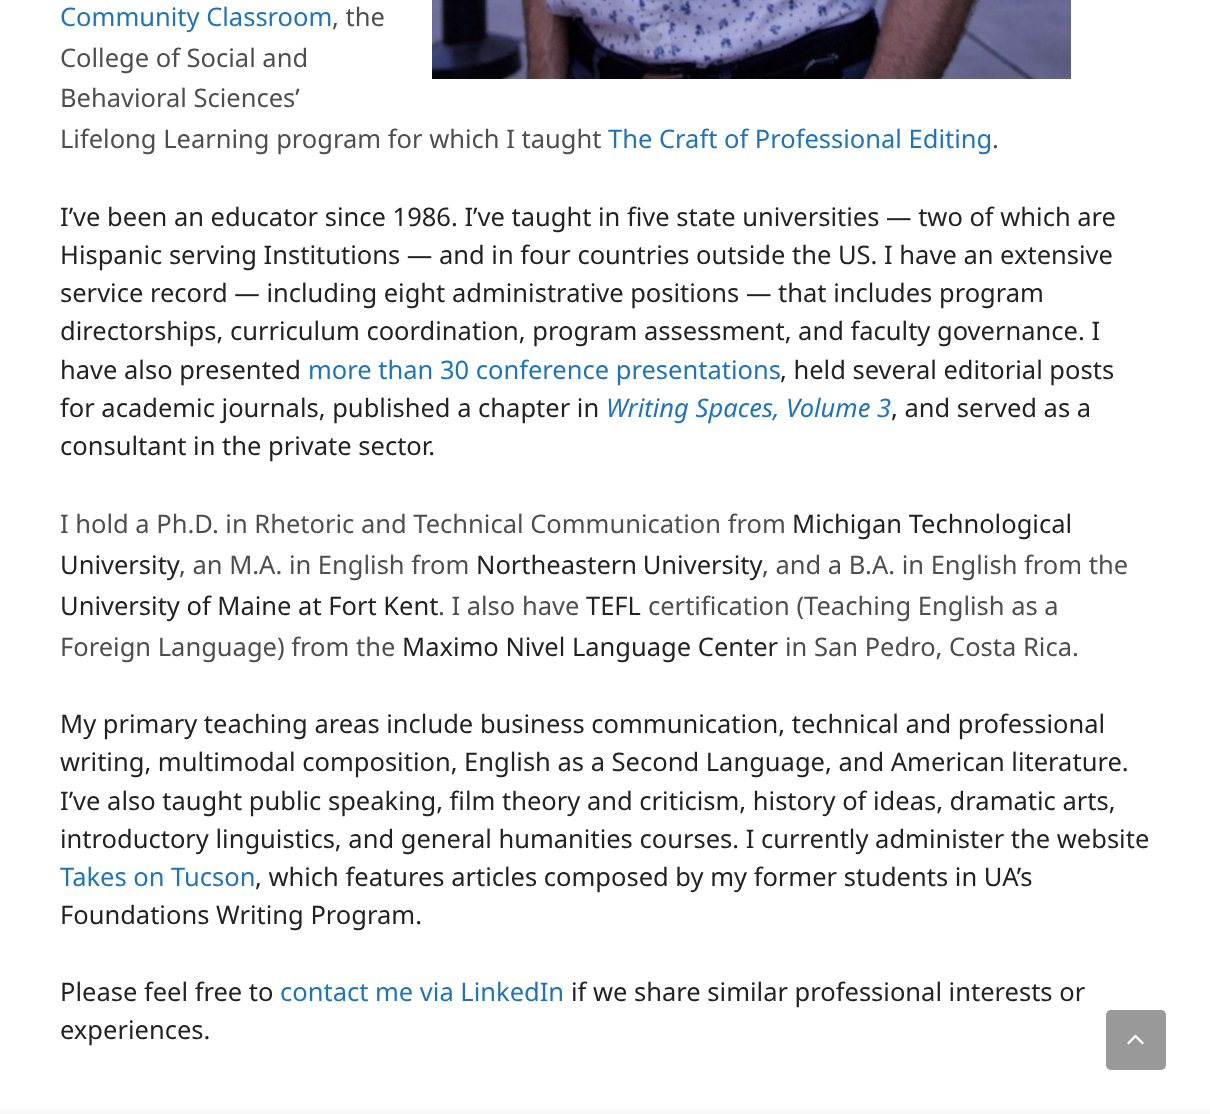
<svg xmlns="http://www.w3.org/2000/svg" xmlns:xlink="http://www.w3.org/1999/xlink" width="1210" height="1114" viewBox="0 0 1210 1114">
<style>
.cls-1{font:25.5px Noto Sans;fill:#1e73be}
.cls-2{font:25.5px Noto Sans;fill:#4e4e4e}
.cls-3{font:25.5px Noto Sans;fill:#222222}
.cls-4{font:italic 25.5px Noto Sans;fill:#1e73be}
</style>
<rect width="100%" height="100%" fill="#f7f8f9"/>
<rect fill="#ffffff" x="0" y="0" width="1210" height="1109"/>
<image xlink:href="image0.png" x="432" y="0" width="639" height="79"/>
<rect fill="#999999" x="1106" y="1010" width="60" height="60" rx="5"/>
<image xlink:href="image1.png" x="1127" y="1034" width="17" height="11"/>
<text class="cls-1" x="60" y="26">Community Classroom</text>
<text class="cls-2" x="332" y="26">, the</text>
<text class="cls-2"><tspan x="60" y="67">College of Social and</tspan><tspan x="60" y="107">Behavioral Sciences’</tspan><tspan x="60" y="148">Lifelong Learning program for which I taught</tspan></text>
<text class="cls-1" x="608" y="148">The Craft of Professional Editing</text>
<text class="cls-2" x="992" y="148">.</text>
<text class="cls-3"><tspan x="60" y="226">I’ve been an educator since 1986. I’ve taught in five state universities — two of which are</tspan><tspan x="60" y="264">Hispanic serving Institutions — and in four countries outside the US. I have an extensive</tspan><tspan x="60" y="302">service record — including eight administrative positions — that includes program</tspan><tspan x="60" y="340">directorships, curriculum coordination, program assessment, and faculty governance. I</tspan><tspan x="60" y="379">have also presented</tspan></text>
<text class="cls-1" x="308" y="379">more than 30 conference presentations</text>
<text class="cls-3" x="780" y="379">, held several editorial posts</text>
<text class="cls-3" x="60" y="417">for academic journals, published a chapter in</text>
<text class="cls-4" x="606" y="417">Writing Spaces, Volume 3</text>
<text class="cls-3" x="891" y="417">, and served as a</text>
<text class="cls-3" x="60" y="455">consultant in the private sector.</text>
<text class="cls-2" x="60" y="533">I hold a Ph.D. in Rhetoric and Technical Communication from</text>
<text class="cls-3" x="792" y="533">Michigan Technological</text>
<text class="cls-3" x="60" y="574">University</text>
<text class="cls-2" x="179" y="574">, an M.A. in English from</text>
<text class="cls-3" x="476" y="574" word-spacing="-1">Northeastern University</text>
<text class="cls-2" x="762" y="574">, and a B.A. in English from the</text>
<text class="cls-3" x="60" y="615">University of Maine at Fort Kent</text>
<text class="cls-2" x="438" y="615">. I also have</text>
<text class="cls-3" x="586" y="615">TEFL</text>
<text class="cls-2" x="648" y="615">certification (Teaching English as a</text>
<text class="cls-2" x="60" y="656">Foreign Language) from the</text>
<text class="cls-3" x="402" y="656">Maximo Nivel Language Center</text>
<text class="cls-2" x="785" y="656">in San Pedro, Costa Rica.</text>
<text class="cls-3"><tspan x="60" y="733">My primary teaching areas include business communication, technical and professional</tspan><tspan x="60" y="771">writing, multimodal composition, English as a Second Language, and American literature.</tspan><tspan x="60" y="810">I’ve also taught public speaking, film theory and criticism, history of ideas, dramatic arts,</tspan><tspan x="60" y="848">introductory linguistics, and general humanities courses. I currently administer the website</tspan></text>
<text class="cls-1" x="60" y="886">Takes on Tucson</text>
<text class="cls-3" x="255" y="886">, which features articles composed by my former students in UA’s</text>
<text class="cls-3" x="60" y="924">Foundations Writing Program.</text>
<text class="cls-3" x="60" y="1001">Please feel free to</text>
<text class="cls-1" x="280" y="1001">contact me via LinkedIn</text>
<text class="cls-3" x="571" y="1001">if we share similar professional interests or</text>
<text class="cls-3" x="60" y="1039">experiences.</text>
</svg>
